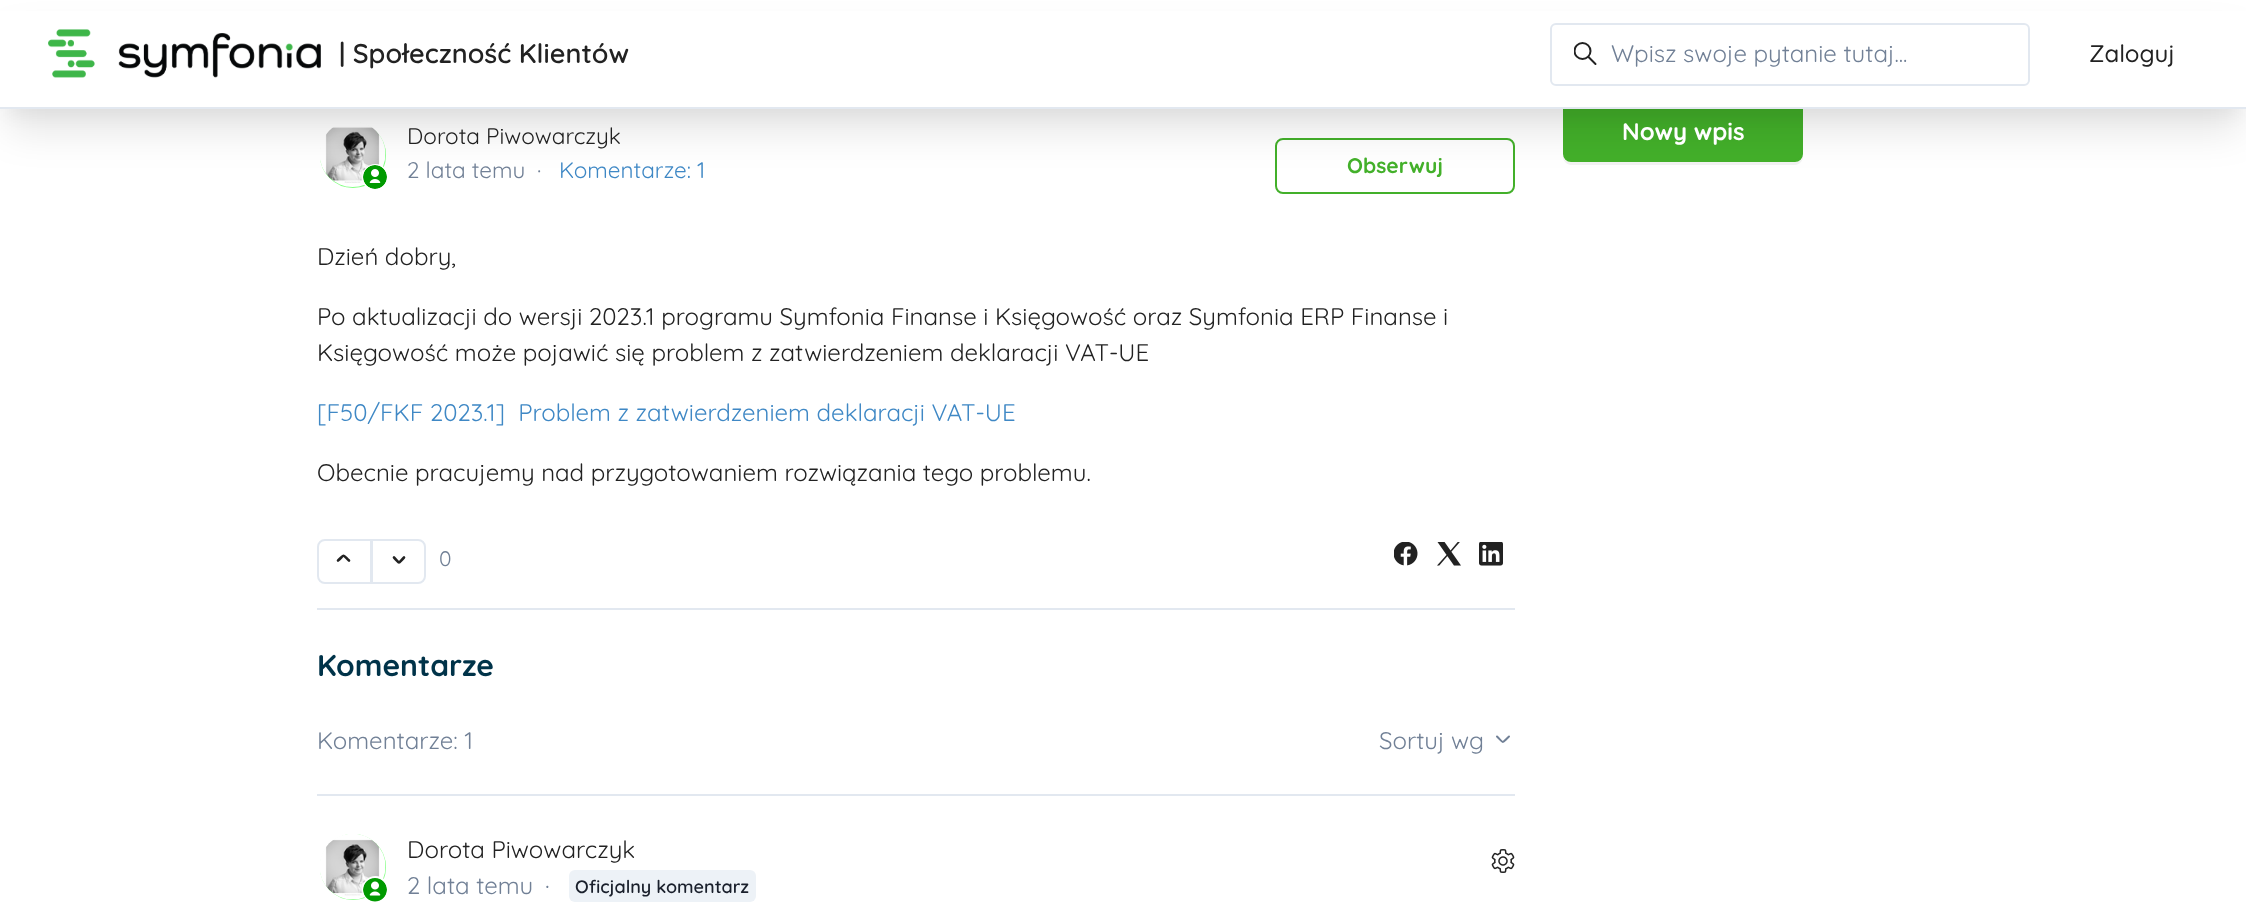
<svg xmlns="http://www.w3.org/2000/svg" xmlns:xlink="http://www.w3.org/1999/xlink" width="2246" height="914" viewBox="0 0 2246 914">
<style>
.cls-1{font:600 27px Quicksand;fill:#222222}
.cls-2{font:24px Quicksand;fill:#718096}
.cls-3{font:500 24px Quicksand;fill:#222222}
.cls-4{font:22.5px Quicksand;fill:#222222}
.cls-5{font:22.5px Quicksand;fill:#718096}
.cls-6{font:22.5px Quicksand;fill:#3f88c5}
.cls-7{font:bold 21px Quicksand;fill:#43b02a}
.cls-8{font:24px Quicksand;fill:#222222}
.cls-9{font:24px Quicksand;fill:#3f88c5}
.cls-10{font:21px Quicksand;fill:#718096}
.cls-11{font:bold 30px Quicksand;fill:#003349}
.cls-12{font:600 18px Quicksand;fill:#1a202c}
.cls-13{font:bold 24px Quicksand;fill:#ffffff}
</style>
<defs>
<clipPath id="clip1"><rect x="1574" y="42" width="24" height="24"/></clipPath>
</defs>
<rect width="100%" height="100%" fill="#ffffff"/>
<circle fill="#81ff81" stroke="#ffffff" stroke-width="3" cx="353" cy="155" r="34.5"/>
<image xlink:href="image1.png" x="320" y="122" width="66" height="65"/>
<rect fill="none" stroke="#43b02a" stroke-width="2" x="1276" y="139" width="238" height="54" rx="7"/>
<path fill="#f2f2f2" d="M1563 155V157C1563 161 1567 165 1571 165H1795C1799 165 1803 161 1803 157V155C1803 159 1800 162 1796 162H1570C1566 162 1563 159 1563 155Z"/>
<rect fill="#43b02a" stroke="#43b02a" stroke-width="2" x="1564" y="100" width="238" height="61" rx="7"/>
<rect fill="#000000" fill-opacity="0.04" filter="blur(7.5px)" x="8" y="23" width="2232" height="93"/>
<circle fill="#ffffff" stroke="#ffffff" stroke-width="2" cx="375.5" cy="177.5" r="12.5"/>
<image xlink:href="image2.png" x="363" y="165" width="24" height="24"/>
<rect fill="#000000" fill-opacity="0.1" filter="blur(19px)" x="8" y="38" width="2232" height="93"/>
<rect fill="#ffffff" x="0" y="11" width="2246" height="96"/>
<rect fill="#e2e8f0" x="0" y="107" width="2246" height="2"/>
<image xlink:href="image0.png" x="48" y="29" width="273" height="49"/>
<rect fill="none" stroke="#e2e8f0" stroke-width="2" x="1551" y="24" width="478" height="61" rx="5"/>
<g clip-path="url(#clip1)">
<circle fill="none" stroke="#222222" stroke-width="2" cx="1582.5" cy="51" r="8"/>
</g>
<path fill="none" stroke="#222222" stroke-width="2" stroke-linecap="round" d="M1595.5 64L1588.5 57"/>
<path fill="none" stroke="#e2e8f0" stroke-width="2" d="M325 540H371V583H325C321 583 318 580 318 576V547C318 543 321 540 325 540Z"/>
<path fill="none" stroke="#222222" stroke-width="2.6" stroke-linecap="round" d="M349 560.5C342 554 345 554.5 338 560.5"/>
<path fill="none" stroke="#e2e8f0" stroke-width="2" d="M372 540H418C422 540 425 543 425 547V576C425 580 422 583 418 583H372Z"/>
<path fill="none" stroke="#222222" stroke-width="2.6" stroke-linecap="round" d="M394 557.5C400.5 564 397.5 564 404 557.5"/>
<image xlink:href="image3.png" x="1394" y="542" width="24" height="24"/>
<image xlink:href="image4.png" x="1437" y="542" width="24" height="24"/>
<image xlink:href="image5.png" x="1479" y="542" width="24" height="24"/>
<rect fill="#e2e8f0" x="317" y="608" width="1198" height="2"/>
<rect fill="#e2e8f0" x="317" y="794" width="1198" height="2"/>
<path fill="none" stroke="#718096" stroke-width="2" stroke-linecap="round" d="M1497 736.5C1504.5 744 1501.5 743.5 1509 736.5"/>
<circle fill="#81ff81" stroke="#ffffff" stroke-width="3" cx="353" cy="867" r="34.5"/>
<image xlink:href="image6.png" x="320" y="834" width="66" height="66"/>
<circle fill="#ffffff" stroke="#ffffff" stroke-width="2" cx="375.5" cy="889.5" r="12.5"/>
<image xlink:href="image7.png" x="363" y="878" width="24" height="24"/>
<rect fill="#edf2f7" x="569" y="870" width="187" height="32" rx="6"/>
<image xlink:href="image8.png" x="1491" y="849" width="24" height="24"/>
<text class="cls-1" x="339" y="63">| Społeczność Klientów</text>
<text class="cls-2" x="1611" y="62">Wpisz swoje pytanie tutaj...</text>
<text class="cls-3" x="2089" y="62">Zaloguj</text>
<text class="cls-4" x="407" y="144">Dorota Piwowarczyk</text>
<text class="cls-5" x="407" y="178">2 lata temu</text>
<text class="cls-5" x="537" y="178">·</text>
<text class="cls-6" x="559" y="178">Komentarze: 1</text>
<text class="cls-7" x="1347" y="173">Obserwuj</text>
<text class="cls-8" x="317" y="265">Dzień dobry,</text>
<text class="cls-8"><tspan x="317" y="325">Po aktualizacji do wersji 2023.1 programu Symfonia Finanse i Księgowość oraz Symfonia ERP Finanse i</tspan><tspan x="317" y="361">Księgowość może pojawić się problem z zatwierdzeniem deklaracji VAT-UE</tspan></text>
<text class="cls-9" xml:space="preserve" x="317" y="421">[F50/FKF 2023.1]  Problem z zatwierdzeniem deklaracji VAT-UE</text>
<text class="cls-8" x="317" y="481">Obecnie pracujemy nad przygotowaniem rozwiązania tego problemu.</text>
<text class="cls-10" x="439" y="566">0</text>
<text class="cls-11" x="317" y="676">Komentarze</text>
<text class="cls-2" x="317" y="749">Komentarze: 1</text>
<text class="cls-2" x="1379" y="749">Sortuj wg</text>
<text class="cls-8" x="407" y="858">Dorota Piwowarczyk</text>
<text class="cls-2" x="407" y="894">2 lata temu</text>
<text class="cls-2" x="545" y="894">·</text>
<text class="cls-12" x="575" y="893">Oficjalny komentarz</text>
<text class="cls-13" x="1622" y="140">Nowy wpis</text>
</svg>
